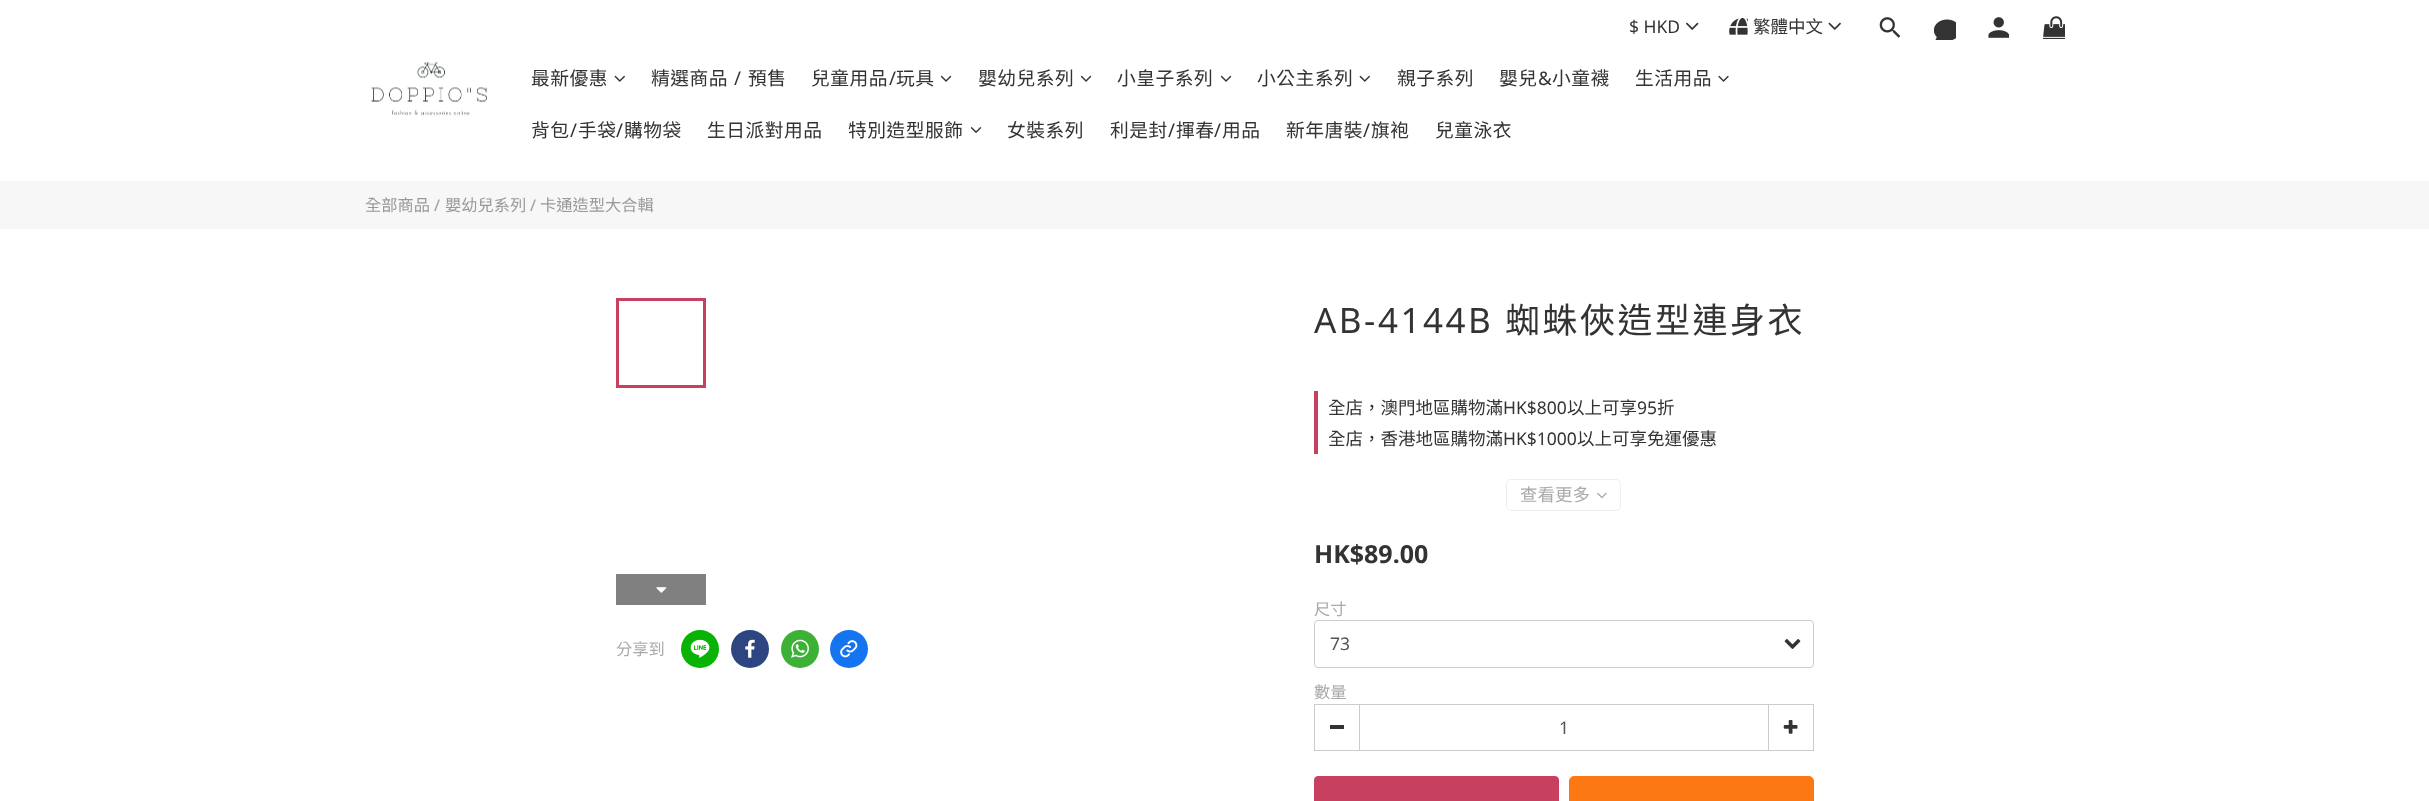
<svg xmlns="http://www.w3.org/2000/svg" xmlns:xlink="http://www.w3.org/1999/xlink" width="2429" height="801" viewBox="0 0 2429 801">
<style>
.cls-1{font:17.5px Noto Sans;fill:#333333}
.cls-2{font:17.5px Noto Sans TC;fill:#333333}
.cls-3{font:18.75px Noto Sans TC;letter-spacing:0.5px;fill:#333333}
.cls-4{font:18.75px Noto Sans;letter-spacing:0.5px;fill:#333333}
.cls-5{font:16.25px Noto Sans TC;fill:#999999}
.cls-6{font:16.25px Noto Sans;fill:#999999}
.cls-7{font:16.25px Noto Sans TC;fill:#aaaaaa}
.cls-8{font:35px Noto Sans;letter-spacing:2.5px;fill:#333333}
.cls-9{font:35px Noto Sans TC;letter-spacing:2.5px;fill:#333333}
.cls-10{font:17.5px Noto Sans TC;fill:#aaaaaa}
.cls-11{font:bold 25px Noto Sans;fill:#333333}
.cls-12{font:17.5px Noto Sans;fill:#555555}
</style>
<rect width="100%" height="100%" fill="#ffffff"/>
<image xlink:href="image0.png" x="1686" y="22" width="13" height="8"/>
<image xlink:href="image1.png" x="1729" y="18" width="19" height="17"/>
<image xlink:href="image2.png" x="1828" y="22" width="13" height="8"/>
<image xlink:href="image3.png" x="1879" y="17" width="22" height="21"/>
<image xlink:href="image4.png" x="1934" y="19" width="22" height="21"/>
<image xlink:href="image5.png" x="1988" y="17" width="22" height="21"/>
<image xlink:href="image6.png" x="2043" y="16" width="22" height="23"/>
<image xlink:href="image7.png" x="371" y="62" width="116" height="54"/>
<image xlink:href="image8.png" x="614" y="75" width="11" height="7"/>
<image xlink:href="image9.png" x="940" y="75" width="12" height="7"/>
<image xlink:href="image9.png" x="1080" y="75" width="12" height="7"/>
<image xlink:href="image9.png" x="1220" y="75" width="12" height="7"/>
<image xlink:href="image8.png" x="1359" y="75" width="11" height="7"/>
<image xlink:href="image10.png" x="1718" y="75" width="11" height="7"/>
<image xlink:href="image11.png" x="970" y="127" width="12" height="6"/>
<rect fill="#f7f7f7" x="0" y="181" width="2429" height="48"/>
<rect fill="none" stroke="#c74060" stroke-width="3" x="617.5" y="299.5" width="87" height="87"/>
<rect fill="#808080" x="616" y="574" width="90" height="31"/>
<image xlink:href="image12.png" x="656" y="587" width="11" height="6"/>
<circle fill="#09b305" cx="700" cy="649" r="19"/>
<image xlink:href="image13.png" x="690" y="639" width="20" height="19"/>
<circle fill="#2d4682" cx="750" cy="649" r="19"/>
<image xlink:href="image14.png" x="745" y="639" width="10" height="19"/>
<circle fill="#3cb136" cx="800" cy="649" r="19"/>
<image xlink:href="image15.png" x="791" y="639" width="18" height="19"/>
<circle fill="#1575f0" cx="849" cy="649" r="19"/>
<image xlink:href="image16.png" x="840" y="640" width="18" height="18"/>
<rect fill="#c74060" x="1314" y="391" width="4" height="63"/>
<rect fill="none" stroke="#eeeeee" x="1506.5" y="479.5" width="114" height="31" rx="4.5"/>
<image xlink:href="image17.png" x="1597" y="492" width="10" height="7"/>
<image xlink:href="image18.png" x="1784" y="639" width="17" height="10"/>
<rect fill="none" stroke="#cccccc" x="1314.5" y="620.5" width="499" height="47" rx="3.5"/>
<rect fill="#cccccc" x="1359" y="704" width="410" height="1"/>
<rect fill="#cccccc" x="1359" y="750" width="410" height="1"/>
<rect fill="none" stroke="#cccccc" x="1314.5" y="704.5" width="45" height="46"/>
<rect fill="#333333" x="1330" y="725" width="14" height="4"/>
<rect fill="none" stroke="#cccccc" x="1768.5" y="704.5" width="45" height="46"/>
<image xlink:href="image19.png" x="1783" y="720" width="15" height="14"/>
<rect fill="#c74060" stroke="#c74060" x="1314.5" y="776.5" width="244" height="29" rx="3.5"/>
<rect fill="#fb7813" stroke="#fb7813" x="1569.5" y="776.5" width="244" height="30" rx="4.5"/>
<text class="cls-1" x="1629" y="33">$ HKD</text>
<text class="cls-2" x="1753" y="33">繁體中文</text>
<text class="cls-3" x="531" y="85">最新優惠</text>
<text class="cls-3" x="651" y="85">精選商品</text>
<text class="cls-4" x="734" y="85">/</text>
<text class="cls-3" x="748" y="85">預售</text>
<text class="cls-3" x="811" y="85">兒童用品</text>
<text class="cls-4" x="889" y="85">/</text>
<text class="cls-3" x="896" y="85">玩具</text>
<text class="cls-3" x="978" y="85">嬰幼兒系列</text>
<text class="cls-3" x="1117" y="85">小皇子系列</text>
<text class="cls-3" x="1257" y="85">小公主系列</text>
<text class="cls-3" x="1397" y="85">親子系列</text>
<text class="cls-3" x="1499" y="85">嬰兒</text>
<text class="cls-4" x="1538" y="85">&amp;</text>
<text class="cls-3" x="1552" y="85">小童襪</text>
<text class="cls-3" x="1635" y="85">生活用品</text>
<text class="cls-3" x="531" y="137">背包</text>
<text class="cls-4" x="570" y="137">/</text>
<text class="cls-3" x="578" y="137">手袋</text>
<text class="cls-4" x="616" y="137">/</text>
<text class="cls-3" x="624" y="137">購物袋</text>
<text class="cls-3" x="707" y="137">生日派對用品</text>
<text class="cls-3" x="848" y="137">特別造型服飾</text>
<text class="cls-3" x="1007" y="137">女裝系列</text>
<text class="cls-3" x="1110" y="137">利是封</text>
<text class="cls-4" x="1168" y="137">/</text>
<text class="cls-3" x="1176" y="137">揮春</text>
<text class="cls-4" x="1214" y="137">/</text>
<text class="cls-3" x="1222" y="137">用品</text>
<text class="cls-3" x="1286" y="137">新年唐裝</text>
<text class="cls-4" x="1363" y="137">/</text>
<text class="cls-3" x="1371" y="137">旗袍</text>
<text class="cls-3" x="1435" y="137">兒童泳衣</text>
<text class="cls-5" x="365" y="211">全部商品</text>
<text class="cls-6" x="434" y="211">/</text>
<text class="cls-5" x="445" y="211">嬰幼兒系列</text>
<text class="cls-6" x="530" y="211">/</text>
<text class="cls-5" x="540" y="211">卡通造型大合輯</text>
<text class="cls-7" x="616" y="655">分享到</text>
<text class="cls-8" x="1314" y="333">AB-4144B</text>
<text class="cls-9" x="1505" y="333">蜘蛛俠造型連身衣</text>
<text class="cls-2" x="1328" y="414">全店，澳門地區購物滿</text>
<text class="cls-1" x="1503" y="414">HK$800</text>
<text class="cls-2" x="1567" y="414">以上可享</text>
<text class="cls-1" x="1637" y="414">95</text>
<text class="cls-2" x="1657" y="414">折</text>
<text class="cls-2" x="1328" y="445">全店，香港地區購物滿</text>
<text class="cls-1" x="1503" y="445">HK$1000</text>
<text class="cls-2" x="1577" y="445">以上可享免運優惠</text>
<text class="cls-10" x="1520" y="501">查看更多</text>
<text class="cls-11" x="1314" y="563">HK$89.00</text>
<text class="cls-7" x="1314" y="615">尺寸</text>
<text class="cls-12" x="1330" y="650">73</text>
<text class="cls-7" x="1314" y="698">數量</text>
<text class="cls-12" x="1559" y="734">1</text>
</svg>
